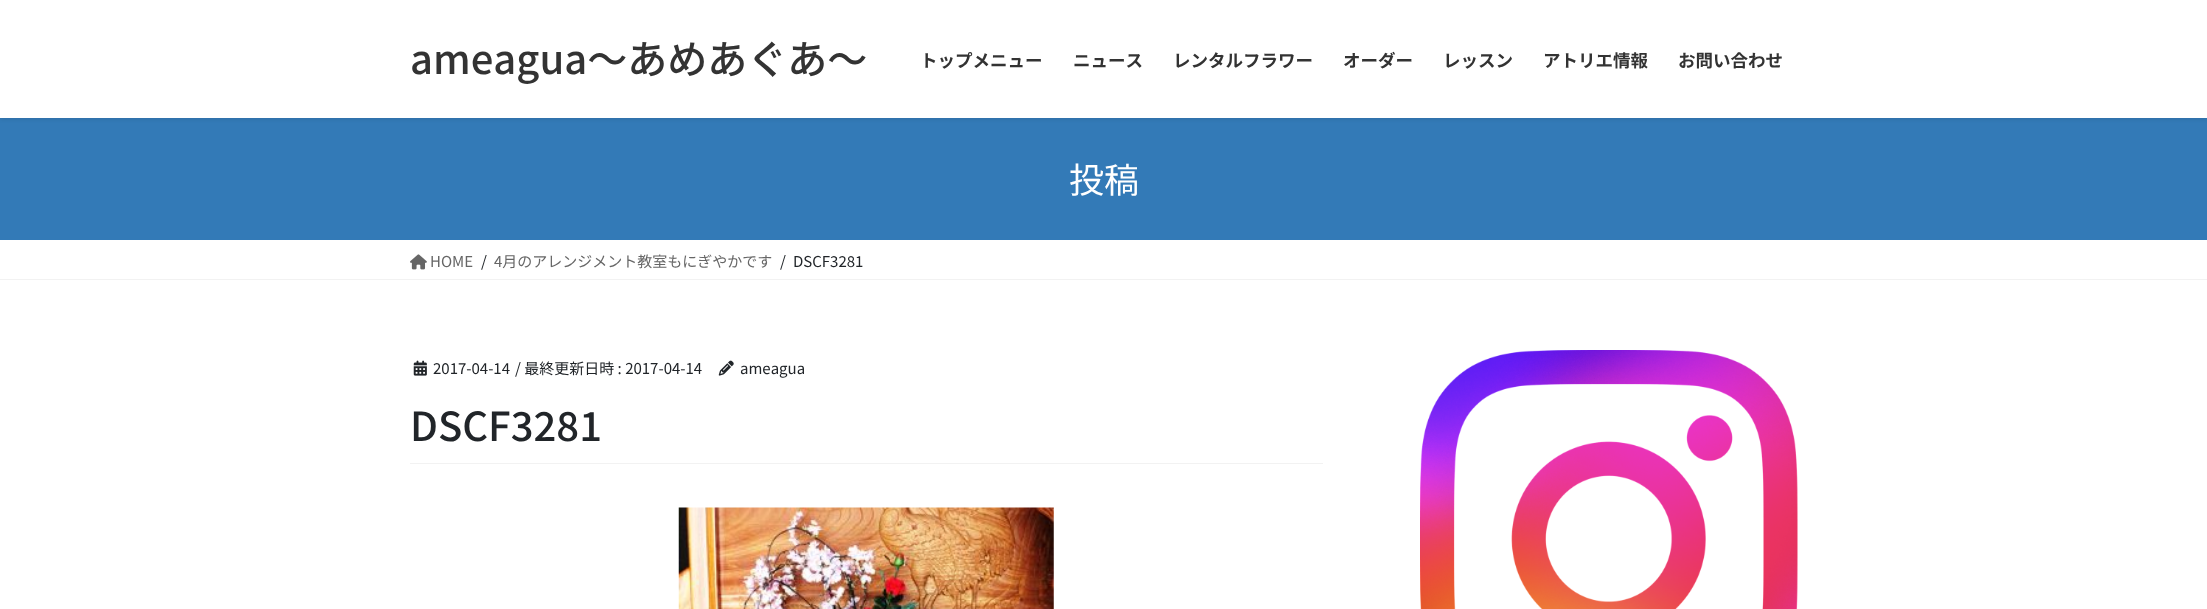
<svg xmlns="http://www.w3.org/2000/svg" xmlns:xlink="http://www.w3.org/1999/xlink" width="2207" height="609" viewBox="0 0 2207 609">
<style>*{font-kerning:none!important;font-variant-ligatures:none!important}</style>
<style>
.cls-1{font:500 40px Noto Sans JP;fill:#333333}
.cls-2{font:bold 17.5px Noto Sans JP;fill:#333333}
.cls-3{font:35px Noto Sans JP;fill:#ffffff}
.cls-4{font:15px Noto Sans JP;fill:#666666}
.cls-5{font:15px Noto Sans JP;fill:#212529}
.cls-6{font:500 40px Noto Sans JP;fill:#212529}
</style>
<rect width="100%" height="100%" fill="#ffffff"/>
<rect fill="#337ab7" x="0" y="118" width="2207" height="122"/>
<rect fill="#000000" fill-opacity="0.1" filter="blur(2px)" x="0" y="1" width="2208" height="118"/>
<rect fill="#ffffff" x="0" y="0" width="2207" height="118"/>
<rect fill="#f2f2f2" x="0" y="279" width="2207" height="1"/>
<image xlink:href="image0.png" x="410" y="254" width="17" height="16"/>
<rect fill="#f2f2f2" x="410" y="463" width="913" height="1"/>
<image xlink:href="image1.png" x="413" y="360" width="14" height="16"/>
<image xlink:href="image2.png" x="718" y="360" width="16" height="16"/>
<image xlink:href="image3.png" x="678" y="507" width="376" height="102"/>
<image xlink:href="image4.png" x="1420" y="350" width="378" height="259"/>
<text class="cls-1" x="410" y="74">ameagua～あめあぐあ～</text>
<text class="cls-2" x="920" y="67">トップメニュー</text>
<text class="cls-2" x="1073" y="67">ニュース</text>
<text class="cls-2" x="1173" y="67">レンタルフラワー</text>
<text class="cls-2" x="1343" y="67">オーダー</text>
<text class="cls-2" x="1443" y="67">レッスン</text>
<text class="cls-2" x="1543" y="67">アトリエ情報</text>
<text class="cls-2" x="1678" y="67">お問い合わせ</text>
<text class="cls-3" x="1069" y="193">投稿</text>
<text class="cls-4" x="430" y="267">HOME</text>
<text class="cls-5" x="481" y="267">/</text>
<text class="cls-4" x="494" y="267">4月のアレンジメント教室もにぎやかです</text>
<text class="cls-5" x="780" y="267">/</text>
<text class="cls-5" x="793" y="267">DSCF3281</text>
<text class="cls-5" x="433" y="374">2017-04-14</text>
<text class="cls-5" x="515" y="374">/ 最終更新日時 : 2017-04-14</text>
<text class="cls-5" x="740" y="374">ameagua</text>
<text class="cls-6" x="410" y="441">DSCF3281</text>
</svg>
